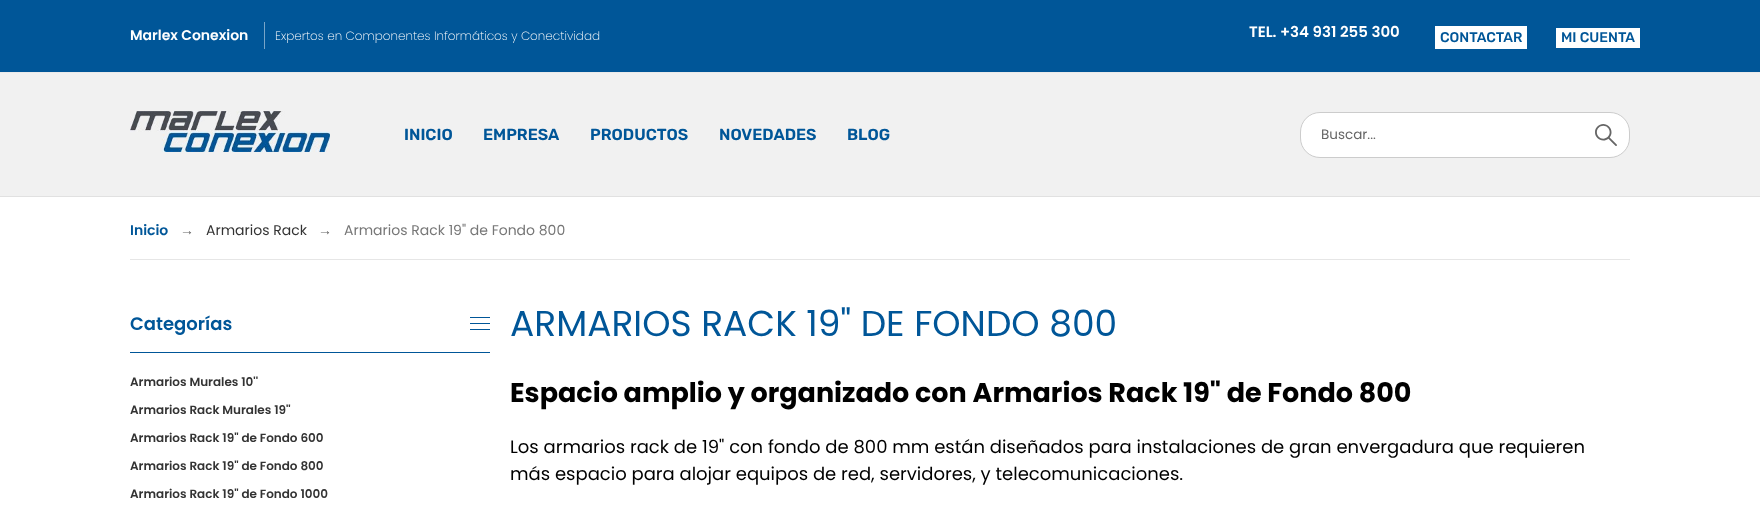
<svg xmlns="http://www.w3.org/2000/svg" xmlns:xlink="http://www.w3.org/1999/xlink" width="1760" height="508" viewBox="0 0 1760 508">
<style>
.cls-1{font:600 14px Poppins;fill:#ffffff}
.cls-2{font:200 12px Poppins;fill:#ffffff}
.cls-3{font:600 15px Poppins;fill:#ffffff}
.cls-4{font:500 14px Rubik;fill:#005698}
.cls-5{font:600 16px Rubik;fill:#005698}
.cls-6{font:13.5px Poppins;fill:#666666}
.cls-7{font:600 14px Poppins;fill:#005698}
.cls-8{font:14px Liberation Sans;fill:#666666}
.cls-9{font:14px Poppins;fill:#333333}
.cls-10{font:14px Poppins;fill:#777777}
.cls-11{font:600 18px Poppins;fill:#005698}
.cls-12{font:600 12px Poppins;fill:#333333}
.cls-13{font:36px Poppins;fill:#005698}
.cls-14{font:bold 27px Poppins;fill:#000000}
.cls-15{font:18px Poppins;fill:#000000}
</style>
<rect width="100%" height="100%" fill="#ffffff"/>
<rect fill="#e1e1e1" x="0" y="196" width="1760" height="1"/>
<rect fill="#005698" x="0" y="0" width="1760" height="72"/>
<rect fill="#eaeaea" x="0" y="72" width="1760" height="1"/>
<rect fill="#78a5c8" x="264" y="22" width="1" height="27"/>
<rect fill="#ffffff" x="1435" y="26" width="92" height="23"/>
<rect fill="#ffffff" x="1556" y="28" width="84" height="20"/>
<rect fill="#f1f1f1" x="0" y="73" width="1760" height="123"/>
<image xlink:href="image0.png" x="130" y="111" width="200" height="41"/>
<rect fill="#ffffff" stroke="#cccccc" x="1300.5" y="112.5" width="329" height="45" rx="19.5"/>
<image xlink:href="image1.png" x="1595" y="124" width="22" height="22"/>
<rect fill="#e6e6e6" x="130" y="259" width="1500" height="1"/>
<image xlink:href="image2.png" x="470" y="317" width="20" height="13"/>
<rect fill="#005698" x="130" y="352" width="360" height="1"/>
<text class="cls-1" x="130" y="40">Marlex Conexion</text>
<text class="cls-2" x="275" y="40">Expertos en Componentes Informáticos y Conectividad</text>
<text class="cls-3" x="1249" y="37">TEL. +34 931 255 300</text>
<text class="cls-4" x="1440" y="42">CONTACTAR</text>
<text class="cls-4" x="1561" y="42">MI CUENTA</text>
<text class="cls-5" x="404" y="140">INICIO</text>
<text class="cls-5" x="483" y="140">EMPRESA</text>
<text class="cls-5" x="590" y="140">PRODUCTOS</text>
<text class="cls-5" x="719" y="140">NOVEDADES</text>
<text class="cls-5" x="847" y="140">BLOG</text>
<text class="cls-6" x="1321" y="139">Buscar...</text>
<text class="cls-7" x="130" y="235">Inicio</text>
<text class="cls-8" x="180" y="235">→</text>
<text class="cls-9" x="206" y="235">Armarios Rack</text>
<text class="cls-8" x="318" y="235">→</text>
<text class="cls-10" x="344" y="235">Armarios Rack 19" de Fondo 800</text>
<text class="cls-11" x="130" y="330">Categorías</text>
<text class="cls-12" x="130" y="386">Armarios Murales 10''</text>
<text class="cls-12" x="130" y="414">Armarios Rack Murales 19''</text>
<text class="cls-12" x="130" y="442">Armarios Rack 19" de Fondo 600</text>
<text class="cls-12" x="130" y="470">Armarios Rack 19" de Fondo 800</text>
<text class="cls-12" x="130" y="498">Armarios Rack 19" de Fondo 1000</text>
<text class="cls-13" x="510" y="336">ARMARIOS RACK 19" DE FONDO 800</text>
<text class="cls-14" x="510" y="402">Espacio amplio y organizado con Armarios Rack 19" de Fondo 800</text>
<text class="cls-15"><tspan x="510" y="453">Los armarios rack de 19" con fondo de 800 mm están diseñados para instalaciones de gran envergadura que requieren</tspan><tspan x="510" y="480">más espacio para alojar equipos de red, servidores, y telecomunicaciones.</tspan></text>
</svg>
